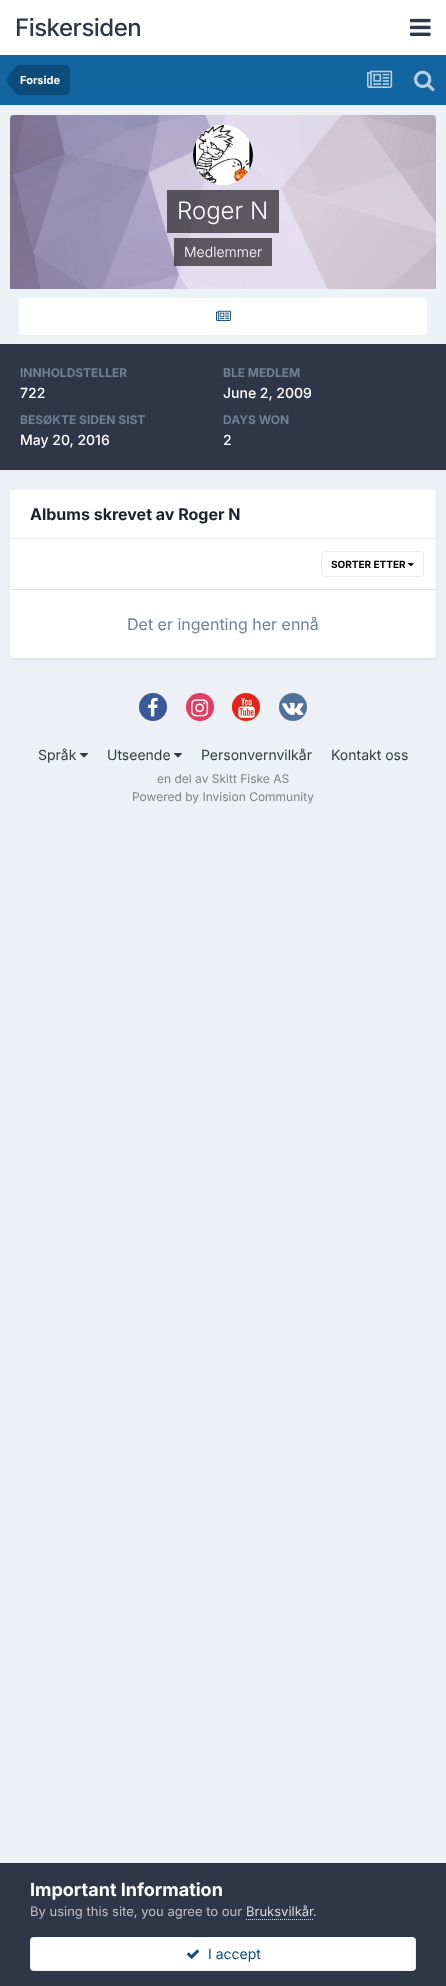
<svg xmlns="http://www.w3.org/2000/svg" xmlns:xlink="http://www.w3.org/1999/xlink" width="446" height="1986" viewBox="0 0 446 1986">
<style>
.cls-1{font:500 24px Inter;letter-spacing:-0.5px;fill:#2d3748}
.cls-2{font:bold 11px Inter;fill:#ffffff}
.cls-3{font:300 24px Inter;fill:#ffffff}
.cls-4{font:300 14px Inter;fill:#ffffff}
.cls-5{font:bold 12px Inter;fill:#718096}
.cls-6{font:500 14px Inter;fill:#ffffff}
.cls-7{font:bold 16px Inter;fill:#1a202c}
.cls-8{font:bold 10px Inter;fill:#000000}
.cls-9{font:16px Inter;fill:#718096}
.cls-10{font:14px Inter;fill:#353c41}
.cls-11{font:12px Inter;fill:#7f8489}
.cls-12{font:bold 18px Inter;fill:#ffffff}
.cls-13{font:13px Inter;fill:#c0c0c0}
.cls-14{font:13px Inter;fill:#dadada}
.cls-15{font:14px Inter;fill:#0e4c79}
</style>
<rect width="100%" height="100%" fill="#edf0f4"/>
<rect fill="#ffffff" x="0" y="0" width="446" height="55"/>
<image xlink:href="image0.png" x="410" y="18" width="21" height="18"/>
<rect fill="#1265a1" x="0" y="55" width="446" height="50"/>
<path fill="#0e4c79" d="M20 65H65C68 65 70 67 70 70V90C70 93 68 95 65 95H20Z"/>
<path fill="#0e4c79" d="M20 80V95C15.5 95 13.5 90.5 11 87C9.5 85 7 83 7 80ZM20 80H7C7 77 9.5 75 11 73C13.5 69.5 15.5 65 20 65Z"/>
<image xlink:href="image1.png" x="367" y="70" width="26" height="18"/>
<image xlink:href="image2.png" x="414" y="70" width="21" height="22"/>
<path fill="#bd99ff" d="M14 115H432C434 115 436 117 436 119V289H10V119C10 117 12 115 14 115Z"/>
<image xlink:href="image3.png" x="10" y="115" width="426" height="174"/>
<circle fill="#ffffff" cx="223" cy="155" r="30"/>
<image xlink:href="image4.png" x="193" y="125" width="60" height="60"/>
<rect fill="#000000" fill-opacity="0.6" x="167" y="190" width="112" height="43"/>
<rect fill="#000000" fill-opacity="0.6" x="174" y="238" width="98" height="28"/>
<rect fill="#edf2f7" x="10" y="289" width="426" height="55"/>
<rect fill="#ffffff" x="18" y="297" width="410" height="39" rx="4"/>
<rect fill="none" stroke="#0e4c79" stroke-opacity="0.07" x="18.5" y="297.5" width="409" height="38" rx="3.5"/>
<image xlink:href="image5.png" x="216" y="310" width="15" height="11"/>
<rect fill="#2d3748" x="0" y="344" width="446" height="126"/>
<rect fill="#2d3748" fill-opacity="0.1" filter="blur(2px)" x="11" y="493" width="424" height="166" rx="3"/>
<rect fill="#ffffff" x="10" y="490" width="426" height="168" rx="4"/>
<path fill="#ffffff" d="M14 490H432C434 490 436 492 436 494V539H10V494C10 492 12 490 14 490Z"/>
<rect fill="#eaecef" x="10" y="538" width="426" height="1"/>
<rect fill="#e1e2e3" x="10" y="589" width="426" height="1"/>
<image xlink:href="image6.png" x="408" y="563" width="6" height="4"/>
<rect fill="none" stroke="#ebecec" x="321.5" y="551.5" width="102" height="25" rx="3.5"/>
<circle fill="#3b5998" cx="153" cy="707" r="14"/>
<image xlink:href="image7.png" x="148" y="697" width="10" height="20"/>
<circle fill="#e13d62" cx="200" cy="707" r="14"/>
<image xlink:href="image8.png" x="191" y="699" width="18" height="18"/>
<circle fill="#e62117" cx="246" cy="707" r="14"/>
<image xlink:href="image9.png" x="238" y="697" width="17" height="21"/>
<circle fill="#507299" cx="293" cy="707" r="14"/>
<image xlink:href="image10.png" x="282" y="702" width="22" height="13"/>
<image xlink:href="image11.png" x="80" y="753" width="8" height="5"/>
<image xlink:href="image11.png" x="174" y="753" width="8" height="5"/>
<rect fill="#2d3748" x="0" y="1863" width="446" height="123"/>
<path fill="none" stroke="#dadada" stroke-dasharray="1 1" d="M246 1919.5H313"/>
<rect fill="#ffffff" x="30" y="1937" width="386" height="34" rx="4"/>
<rect fill="none" stroke="#0e4c79" stroke-opacity="0.07" x="30.5" y="1937.5" width="385" height="33" rx="3.5"/>
<image xlink:href="image12.png" x="187" y="1949" width="12" height="10"/>
<text class="cls-1" x="15" y="36">Fiskersiden</text>
<text class="cls-2" x="20" y="84">Forside</text>
<text class="cls-3" x="177" y="219">Roger N</text>
<text class="cls-4" x="184" y="257">Medlemmer</text>
<text class="cls-5" x="20" y="377">INNHOLDSTELLER</text>
<text class="cls-6" x="20" y="398">722</text>
<text class="cls-5" x="223" y="377">BLE MEDLEM</text>
<text class="cls-6" x="223" y="398">June 2, 2009</text>
<text class="cls-5" x="20" y="424">BESØKTE SIDEN SIST</text>
<text class="cls-6" x="20" y="445">May 20, 2016</text>
<text class="cls-5" x="223" y="424">DAYS WON</text>
<text class="cls-6" x="223" y="445">2</text>
<text class="cls-7" x="30" y="520">Albums skrevet av Roger N</text>
<text class="cls-8" x="331" y="568">SORTER ETTER</text>
<text class="cls-9" x="127" y="630">Det er ingenting her ennå</text>
<text class="cls-10" x="38" y="760">Språk</text>
<text class="cls-10" x="107" y="760">Utseende</text>
<text class="cls-10" x="201" y="760">Personvernvilkår</text>
<text class="cls-10" x="331" y="760">Kontakt oss</text>
<text class="cls-11" x="157" y="783">en del av Skitt Fiske AS</text>
<text class="cls-11" x="132" y="801">Powered by Invision Community</text>
<text class="cls-12" x="30" y="1896">Important Information</text>
<text class="cls-13" x="30" y="1916">By using this site, you agree to our</text>
<text class="cls-14" x="246" y="1916">Bruksvilkår</text>
<text class="cls-13" x="313" y="1916">.</text>
<text class="cls-15" x="208" y="1959">I accept</text>
</svg>
